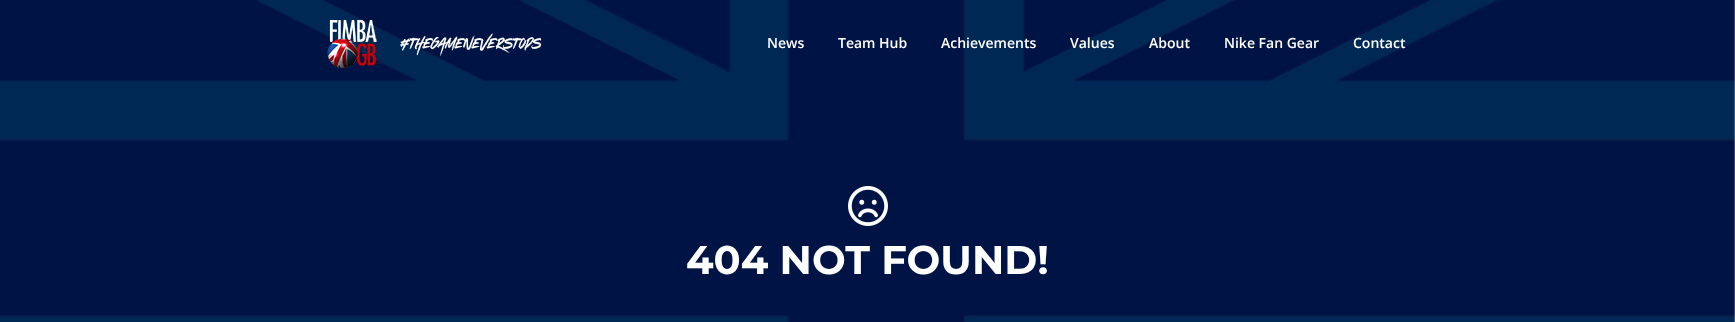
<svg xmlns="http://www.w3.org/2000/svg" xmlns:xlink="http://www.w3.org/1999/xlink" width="1735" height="322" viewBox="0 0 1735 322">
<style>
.cls-1{font:600 14px Open Sans;fill:#ffffff}
.cls-2{font:bold 40px Montserrat;fill:#ffffff}
</style>
<rect width="100%" height="100%" fill="#ffffff"/>
<image xlink:href="image1.png" x="0" y="0" width="1735" height="322"/>
<image xlink:href="image0.png" x="327" y="20" width="215" height="48"/>
<image xlink:href="image2.png" x="848" y="186" width="40" height="40"/>
<text class="cls-1" x="767" y="48">News</text>
<text class="cls-1" x="838" y="48">Team Hub</text>
<text class="cls-1" x="941" y="48">Achievements</text>
<text class="cls-1" x="1070" y="48">Values</text>
<text class="cls-1" x="1149" y="48">About</text>
<text class="cls-1" x="1224" y="48">Nike Fan Gear</text>
<text class="cls-1" x="1353" y="48">Contact</text>
<text class="cls-2" x="686" y="274">404 NOT FOUND!</text>
</svg>
